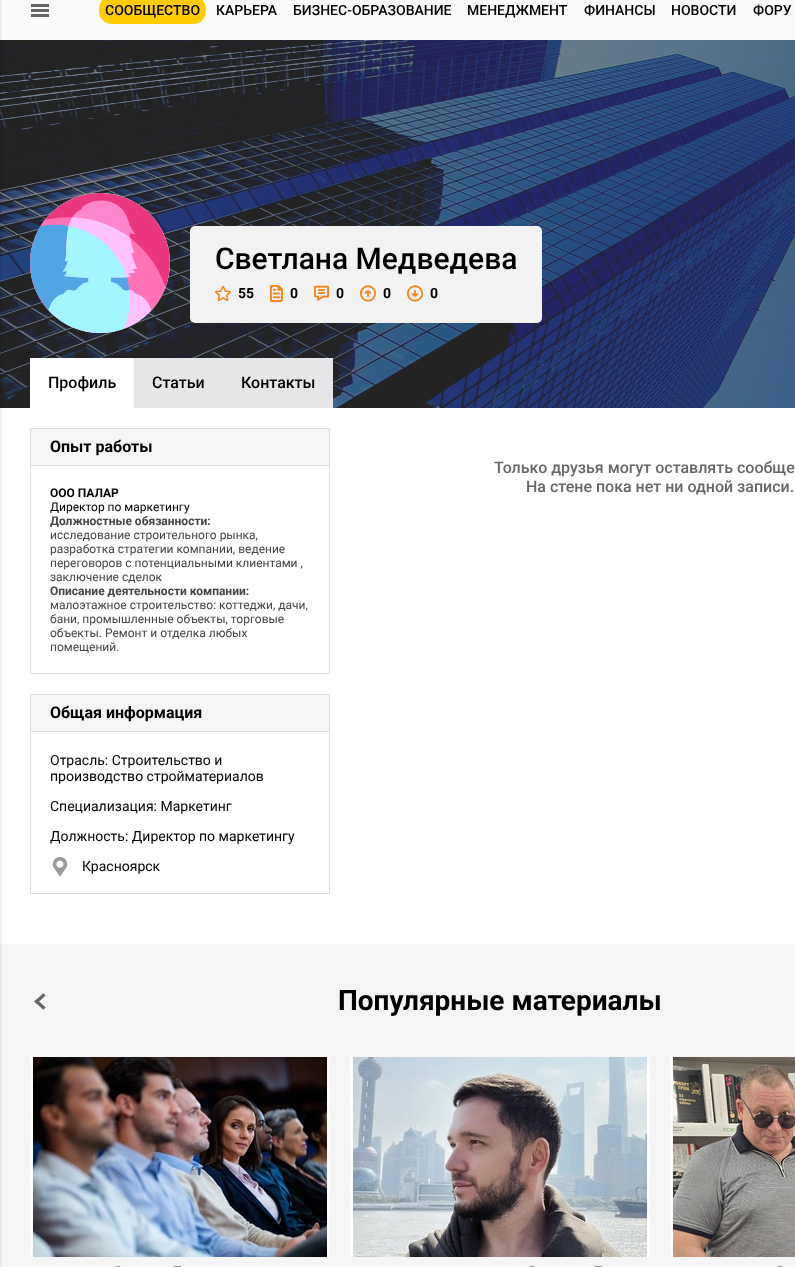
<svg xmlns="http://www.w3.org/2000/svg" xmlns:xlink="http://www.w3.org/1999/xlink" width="795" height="1267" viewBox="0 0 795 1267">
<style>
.cls-1{font:500 14px Roboto;fill:#000000}
.cls-2{font:500 30px Roboto;fill:#000000}
.cls-3{font:bold 14px Roboto;fill:#000000}
.cls-4{font:500 16px Roboto;fill:#000000}
.cls-5{font:bold 16px Roboto;fill:#000000}
.cls-6{font:bold 12px Roboto;fill:#000000}
.cls-7{font:12px Roboto;fill:#000000}
.cls-8{font:bold 12px Roboto;fill:#444444}
.cls-9{font:12px Roboto;fill:#444444}
.cls-10{font:14px Roboto;fill:#000000}
.cls-11{font:500 16px Roboto;fill:#666666}
.cls-12{font:bold 28px Roboto;fill:#000000}
</style>
<rect width="100%" height="100%" fill="#ffffff"/>
<rect fill="#fafafa" x="0" y="0" width="795" height="40"/>
<image xlink:href="image0.png" x="0" y="40" width="795" height="368"/>
<rect fill="#f5f5f5" x="0" y="944" width="795" height="323"/>
<rect fill="#000000" fill-opacity="0.2" filter="blur(1.5px)" x="-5" y="0" width="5" height="1267"/>
<rect fill="#666666" x="31" y="4" width="18" height="3"/>
<rect fill="#666666" x="31" y="9" width="18" height="3"/>
<rect fill="#666666" x="31" y="14" width="18" height="3"/>
<rect fill="#ffcc00" x="99" y="-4" width="107" height="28" rx="13"/>
<circle fill="#f2f2f2" cx="100" cy="263" r="70"/>
<image xlink:href="image1.png" x="30" y="193" width="140" height="140"/>
<rect fill="#f2f2f2" x="190" y="226" width="352" height="97" rx="5"/>
<image xlink:href="image2.png" x="215" y="285" width="16" height="17"/>
<image xlink:href="image3.png" x="270" y="285" width="13" height="17"/>
<image xlink:href="image4.png" x="314" y="285" width="15" height="17"/>
<image xlink:href="image5.png" x="360" y="285" width="16" height="17"/>
<image xlink:href="image6.png" x="407" y="285" width="16" height="17"/>
<rect fill="#ffffff" x="30" y="358" width="104" height="50"/>
<rect fill="#e6e6e8" x="134" y="358" width="199" height="50"/>
<rect fill="none" stroke="#dddddd" x="30.5" y="428.5" width="299" height="245"/>
<rect fill="#f5f5f5" x="31" y="429" width="298" height="36"/>
<rect fill="#dddddd" x="31" y="465" width="298" height="1"/>
<rect fill="none" stroke="#dddddd" x="30.5" y="694.5" width="299" height="199"/>
<rect fill="#f5f5f5" x="31" y="695" width="298" height="36"/>
<rect fill="#dddddd" x="31" y="731" width="298" height="1"/>
<image xlink:href="image7.png" x="52" y="857" width="16" height="20"/>
<image xlink:href="image8.png" x="34" y="993" width="12" height="17"/>
<image xlink:href="image9.png" x="30" y="1057" width="300" height="200"/>
<image xlink:href="image10.png" x="115" y="1266" width="6" height="1"/>
<image xlink:href="image11.png" x="173" y="1266" width="8" height="1"/>
<image xlink:href="image12.png" x="350" y="1057" width="300" height="200"/>
<image xlink:href="image10.png" x="529" y="1266" width="6" height="1"/>
<image xlink:href="image11.png" x="594" y="1266" width="8" height="1"/>
<image xlink:href="image13.png" x="670" y="1057" width="125" height="200"/>
<image xlink:href="image10.png" x="777" y="1266" width="6" height="1"/>
<text class="cls-1" x="105" y="15">СООБЩЕСТВО</text>
<text class="cls-1" x="216" y="15">КАРЬЕРА</text>
<text class="cls-1" x="293" y="15">БИЗНЕС-ОБРАЗОВАНИЕ</text>
<text class="cls-1" x="467" y="15">МЕНЕДЖМЕНТ</text>
<text class="cls-1" x="584" y="15">ФИНАНСЫ</text>
<text class="cls-1" x="671" y="15">НОВОСТИ</text>
<text class="cls-1" x="753" y="15">ФОРУ</text>
<text class="cls-2" x="215" y="269">Светлана Медведева</text>
<text class="cls-3" x="238" y="298">55</text>
<text class="cls-3" x="290" y="298">0</text>
<text class="cls-3" x="336" y="298">0</text>
<text class="cls-3" x="383" y="298">0</text>
<text class="cls-3" x="430" y="298">0</text>
<text class="cls-4" x="48" y="388">Профиль</text>
<text class="cls-4" x="152" y="388">Cтатьи</text>
<text class="cls-4" x="241" y="388">Контакты</text>
<text class="cls-5" x="50" y="452">Опыт работы</text>
<text class="cls-6" x="50" y="497">ООО ПАЛАР</text>
<text class="cls-7" x="50" y="511">Директор по маркетингу</text>
<text class="cls-8" x="50" y="525">Должностные обязанности:</text>
<text class="cls-9"><tspan x="50" y="539">исследование строительного рынка,</tspan><tspan x="50" y="553">разработка стратегии компании, ведение</tspan><tspan x="50" y="567">переговоров с потенциальными клиентами ,</tspan><tspan x="50" y="581">заключение сделок</tspan></text>
<text class="cls-8" x="50" y="595">Описание деятельности компании:</text>
<text class="cls-9"><tspan x="50" y="609">малоэтажное строительство: коттеджи, дачи,</tspan><tspan x="50" y="623">бани, промышленные объекты, торговые</tspan><tspan x="50" y="637">объекты. Ремонт и отделка любых</tspan><tspan x="50" y="651">помещений.</tspan></text>
<text class="cls-5" x="50" y="718">Общая информация</text>
<text class="cls-10"><tspan x="50" y="765">Отрасль: Строительство и</tspan><tspan x="50" y="781">производство стройматериалов</tspan></text>
<text class="cls-10" x="50" y="811">Специализация: Маркетинг</text>
<text class="cls-10" x="50" y="841">Должность: Директор по маркетингу</text>
<text class="cls-10" x="82" y="871">Красноярск</text>
<text class="cls-11" x="494" y="473">Только друзья могут оставлять сообще</text>
<text class="cls-11" x="526" y="492">На стене пока нет ни одной записи.</text>
<text class="cls-12" x="338" y="1010">Популярные материалы</text>
</svg>
